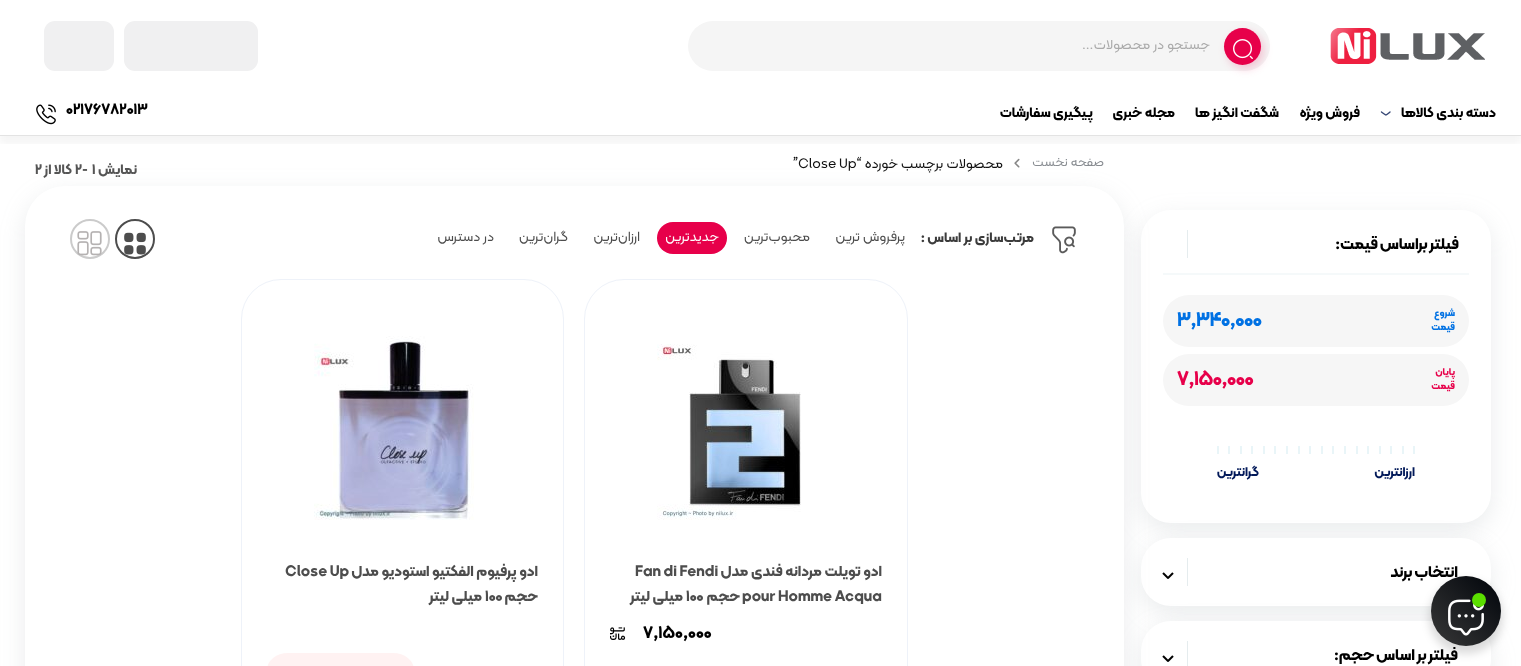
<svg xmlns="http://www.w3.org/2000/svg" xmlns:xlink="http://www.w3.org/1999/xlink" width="1521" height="666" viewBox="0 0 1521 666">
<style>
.cls-1{font:14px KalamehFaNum;direction:rtl;fill:#aaaaaa}
.cls-2{font:bold 14px KalamehFaNum;direction:rtl;fill:#000000}
.cls-3{font:bold 15px KalamehFaNum;fill:#000000}
.cls-4{font:bold 16px KalamehFaNum;letter-spacing:0.25px;direction:rtl;fill:#000000}
.cls-5{font:bold 10px KalamehFaNum;direction:rtl;fill:#0071e3}
.cls-6{font:bold 20px KalamehFaNum;letter-spacing:-0.5px;fill:#0071e3}
.cls-7{font:bold 10px KalamehFaNum;direction:rtl;fill:#e7004a}
.cls-8{font:bold 20px KalamehFaNum;letter-spacing:-0.5px;fill:#e7004a}
.cls-9{font:bold 13px KalamehFaNum;direction:rtl;fill:#021959}
.cls-10{font:13px KalamehFaNum;direction:rtl;fill:#898d92}
.cls-11{font:14px KalamehFaNum;direction:rtl;fill:#111111}
.cls-12{font:14px KalamehFaNum;fill:#111111}
.cls-13{font:bold 14px KalamehFaNum;direction:rtl;fill:#555555}
.cls-14{font:bold 14px KalamehFaNum;fill:#555555}
.cls-15{font:bold 14px KalamehFaNum;direction:rtl;fill:#3b3b3b}
.cls-16{font:14px KalamehFaNum;direction:rtl;fill:#4d4d4d}
.cls-17{font:14px KalamehFaNum;direction:rtl;fill:#ffffff}
.cls-18{font:bold 15px KalamehFaNum;direction:rtl;fill:#4d4d4d}
.cls-19{font:bold 15px KalamehFaNum;fill:#4d4d4d}
.cls-20{font:bold 17px KalamehFaNum;fill:#000000}
</style>
<defs>
<clipPath id="clip1"><rect x="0" y="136" width="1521" height="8"/></clipPath>
<linearGradient id="g1" gradientUnits="userSpaceOnUse" x1="1431" y1="646" x2="1501" y2="576"><stop offset="0" stop-color="#383838"/><stop offset="1" stop-color="#00040a"/></linearGradient>
</defs>
<rect width="100%" height="100%" fill="#ffffff"/>
<image xlink:href="image0.png" x="1330" y="28" width="155" height="36"/>
<rect fill="#f5f5f5" x="688" y="21" width="582" height="50" rx="25"/>
<rect fill="#e7004a" fill-opacity="0.2" filter="blur(4.5px)" x="1227" y="32" width="37" height="37" rx="18.5"/>
<circle fill="#e7004a" cx="1242.5" cy="46.5" r="18.5"/>
<image xlink:href="image1.png" x="1233" y="39" width="20" height="20"/>
<rect fill="#f0f0f1" x="124" y="21" width="134" height="50" rx="11"/>
<rect fill="#f0f0f1" x="44" y="21" width="70" height="50" rx="11"/>
<g clip-path="url(#clip1)">
<rect fill="#000000" fill-opacity="0.04" filter="blur(3.5px)" x="0" y="93" width="1521" height="51"/>
</g>
<rect fill="#e3e3e3" x="0" y="135" width="1521" height="1"/>
<path fill="none" stroke="#364775" stroke-width="1.4" stroke-linecap="round" stroke-linejoin="round" d="M1390 112C1385.5 116 1386.5 116 1381.5 112"/>
<image xlink:href="image2.png" x="36" y="104" width="20" height="21"/>
<rect fill="#969ea6" fill-opacity="0.2" filter="blur(12px)" x="1141" y="218" width="350" height="313" rx="30"/>
<rect fill="#ffffff" x="1141" y="210" width="350" height="313" rx="30"/>
<rect fill="#969ea6" fill-opacity="0.2" filter="blur(12px)" x="1141" y="546" width="350" height="68" rx="30"/>
<rect fill="#ffffff" x="1141" y="538" width="350" height="68" rx="30"/>
<rect fill="#969ea6" fill-opacity="0.2" filter="blur(12px)" x="1141" y="629" width="350" height="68" rx="30"/>
<rect fill="#ffffff" x="1141" y="621" width="350" height="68" rx="30"/>
<rect fill="#000000" fill-opacity="0.14" filter="blur(4px)" x="1429" y="580" width="74" height="74" rx="37"/>
<rect fill="#e5ecee" x="1187" y="230" width="1" height="28"/>
<rect fill="#f5f9fa" x="1163" y="273" width="306" height="2"/>
<rect fill="#f6f6f6" x="1163" y="295" width="306" height="52" rx="26"/>
<rect fill="#f6f6f6" x="1163" y="354" width="306" height="52" rx="26"/>
<rect fill="#e9f5f8" x="1413" y="446" width="2" height="8"/>
<rect fill="#e9f5f8" x="1402" y="446" width="2" height="8"/>
<rect fill="#e9f5f8" x="1390" y="446" width="2" height="8"/>
<rect fill="#e9f5f8" x="1379" y="446" width="2" height="8"/>
<rect fill="#e9f5f8" x="1367" y="446" width="2" height="8"/>
<rect fill="#e9f5f8" x="1356" y="446" width="2" height="8"/>
<rect fill="#e9f5f8" x="1344" y="446" width="2" height="8"/>
<rect fill="#e9f5f8" x="1332" y="446" width="2" height="8"/>
<rect fill="#e9f5f8" x="1321" y="446" width="2" height="8"/>
<rect fill="#e9f5f8" x="1309" y="446" width="2" height="8"/>
<rect fill="#e9f5f8" x="1298" y="446" width="2" height="8"/>
<rect fill="#e9f5f8" x="1286" y="446" width="2" height="8"/>
<rect fill="#e9f5f8" x="1274" y="446" width="2" height="8"/>
<rect fill="#e9f5f8" x="1263" y="446" width="2" height="8"/>
<rect fill="#e9f5f8" x="1251" y="446" width="2" height="8"/>
<rect fill="#e9f5f8" x="1240" y="446" width="2" height="8"/>
<rect fill="#e9f5f8" x="1228" y="446" width="2" height="8"/>
<rect fill="#e9f5f8" x="1217" y="446" width="2" height="8"/>
<rect fill="#e5ecee" x="1187" y="558" width="1" height="28"/>
<image xlink:href="image4.png" x="1162" y="572" width="12" height="7"/>
<rect fill="#e5ecee" x="1187" y="641" width="1" height="25"/>
<image xlink:href="image4.png" x="1162" y="655" width="12" height="7"/>
<image xlink:href="image5.png" x="1014" y="158" width="6" height="10"/>
<rect fill="#969ea6" fill-opacity="0.2" filter="blur(12px)" x="25" y="194" width="1099" height="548" rx="40"/>
<rect fill="#ffffff" x="25" y="186" width="1099" height="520" rx="40"/>
<image xlink:href="image6.png" x="1052" y="226" width="24" height="28"/>
<rect fill="#e7004a" x="657" y="222" width="70" height="32" rx="16"/>
<circle fill="none" stroke="#4d4d4d" stroke-width="2" cx="135" cy="239" r="19"/>
<image xlink:href="image7.png" x="124" y="232" width="22" height="23"/>
<circle fill="none" stroke="#cbcbcb" stroke-width="2" cx="90" cy="239" r="19"/>
<image xlink:href="image8.png" x="77" y="231" width="25" height="25"/>
<rect fill="none" stroke="#eef2f9" x="584.5" y="279.5" width="323" height="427" rx="39.5"/>
<image xlink:href="image9.png" x="657" y="344" width="144" height="176"/>
<image xlink:href="image10.png" x="610" y="627" width="16" height="13"/>
<rect fill="none" stroke="#eef2f9" x="241.5" y="279.5" width="322" height="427" rx="39.5"/>
<image xlink:href="image11.png" x="314" y="336" width="160" height="184"/>
<rect fill="#fff2f2" x="267" y="653" width="147" height="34" rx="21"/>
<text class="cls-1" x="1210" y="49">جستجو در محصولات...</text>
<text class="cls-2" x="1496" y="117">دسته بندی کالاها</text>
<text class="cls-2" x="1360" y="117">فروش ویژه</text>
<text class="cls-2" x="1279" y="117">شگفت انگیز ها</text>
<text class="cls-2" x="1175" y="117">مجله خبری</text>
<text class="cls-2" x="1093" y="117">پیگیری سفارشات</text>
<text class="cls-3" x="66" y="114">02176782013</text>
<text class="cls-4" x="1459" y="249" word-spacing="-1">فیلتر براساس قیمت:</text>
<text class="cls-5"><tspan x="1455" y="316">شروع</tspan><tspan x="1455" y="330">قیمت</tspan></text>
<text class="cls-6" x="1177" y="326">3,340,000</text>
<text class="cls-7"><tspan x="1455" y="375">پایان</tspan><tspan x="1455" y="389">قیمت</tspan></text>
<text class="cls-8" x="1177" y="385">7,150,000</text>
<text class="cls-9" x="1415" y="476">ارزانترین</text>
<text class="cls-9" x="1259" y="476">گرانترین</text>
<text class="cls-4" x="1458" y="577" word-spacing="-1">انتخاب برند</text>
<circle fill="url(#g1)" cx="1466" cy="611" r="35"/>
<image xlink:href="image3.png" x="1448" y="599" width="36" height="37"/>
<circle fill="#5bdf00" cx="1479" cy="600" r="7"/>
<text class="cls-4" x="1458" y="660" word-spacing="-1">فیلتر بر اساس حجم:</text>
<text class="cls-10" x="1104" y="166">صفحه نخست</text>
<text class="cls-11" x="1003" y="168">محصولات برچسب خورده “</text>
<text class="cls-12" x="793" y="168">”Close Up</text>
<text class="cls-13" x="137" y="174">نمایش</text>
<text class="cls-14" x="92" y="174">1</text>
<text class="cls-14" x="82" y="174">-</text>
<text class="cls-14" x="75" y="174">2</text>
<text class="cls-13" x="72" y="174">کالا از</text>
<text class="cls-14" x="35" y="174">2</text>
<text class="cls-15" x="1034" y="242">مرتب‌سازی بر اساس :</text>
<text class="cls-16" x="905" y="241">پرفروش ترین</text>
<text class="cls-16" x="810" y="241">محبوب‌ترین</text>
<text class="cls-17" x="719" y="241">جدیدترین</text>
<text class="cls-16" x="640" y="241">ارزان‌ترین</text>
<text class="cls-16" x="568" y="241">گران‌ترین</text>
<text class="cls-16" x="494" y="241">در دسترس</text>
<text class="cls-18" x="882" y="576">ادو تویلت مردانه فندی مدل</text>
<text class="cls-19" x="635" y="576">Fan di Fendi</text>
<text class="cls-19" x="742" y="601">pour Homme Acqua</text>
<text class="cls-18" x="740" y="601">حجم</text>
<text class="cls-19" x="686" y="601">100</text>
<text class="cls-18" x="683" y="601">میلی لیتر</text>
<text class="cls-20" x="643" y="638">7,150,000</text>
<text class="cls-18" x="538" y="576">ادو پرفیوم الفکتیو استودیو مدل</text>
<text class="cls-19" x="285" y="576">Close Up</text>
<text class="cls-18" x="538" y="601">حجم</text>
<text class="cls-19" x="485" y="601">۱۰۰</text>
<text class="cls-18" x="482" y="601">میلی لیتر</text>
</svg>
